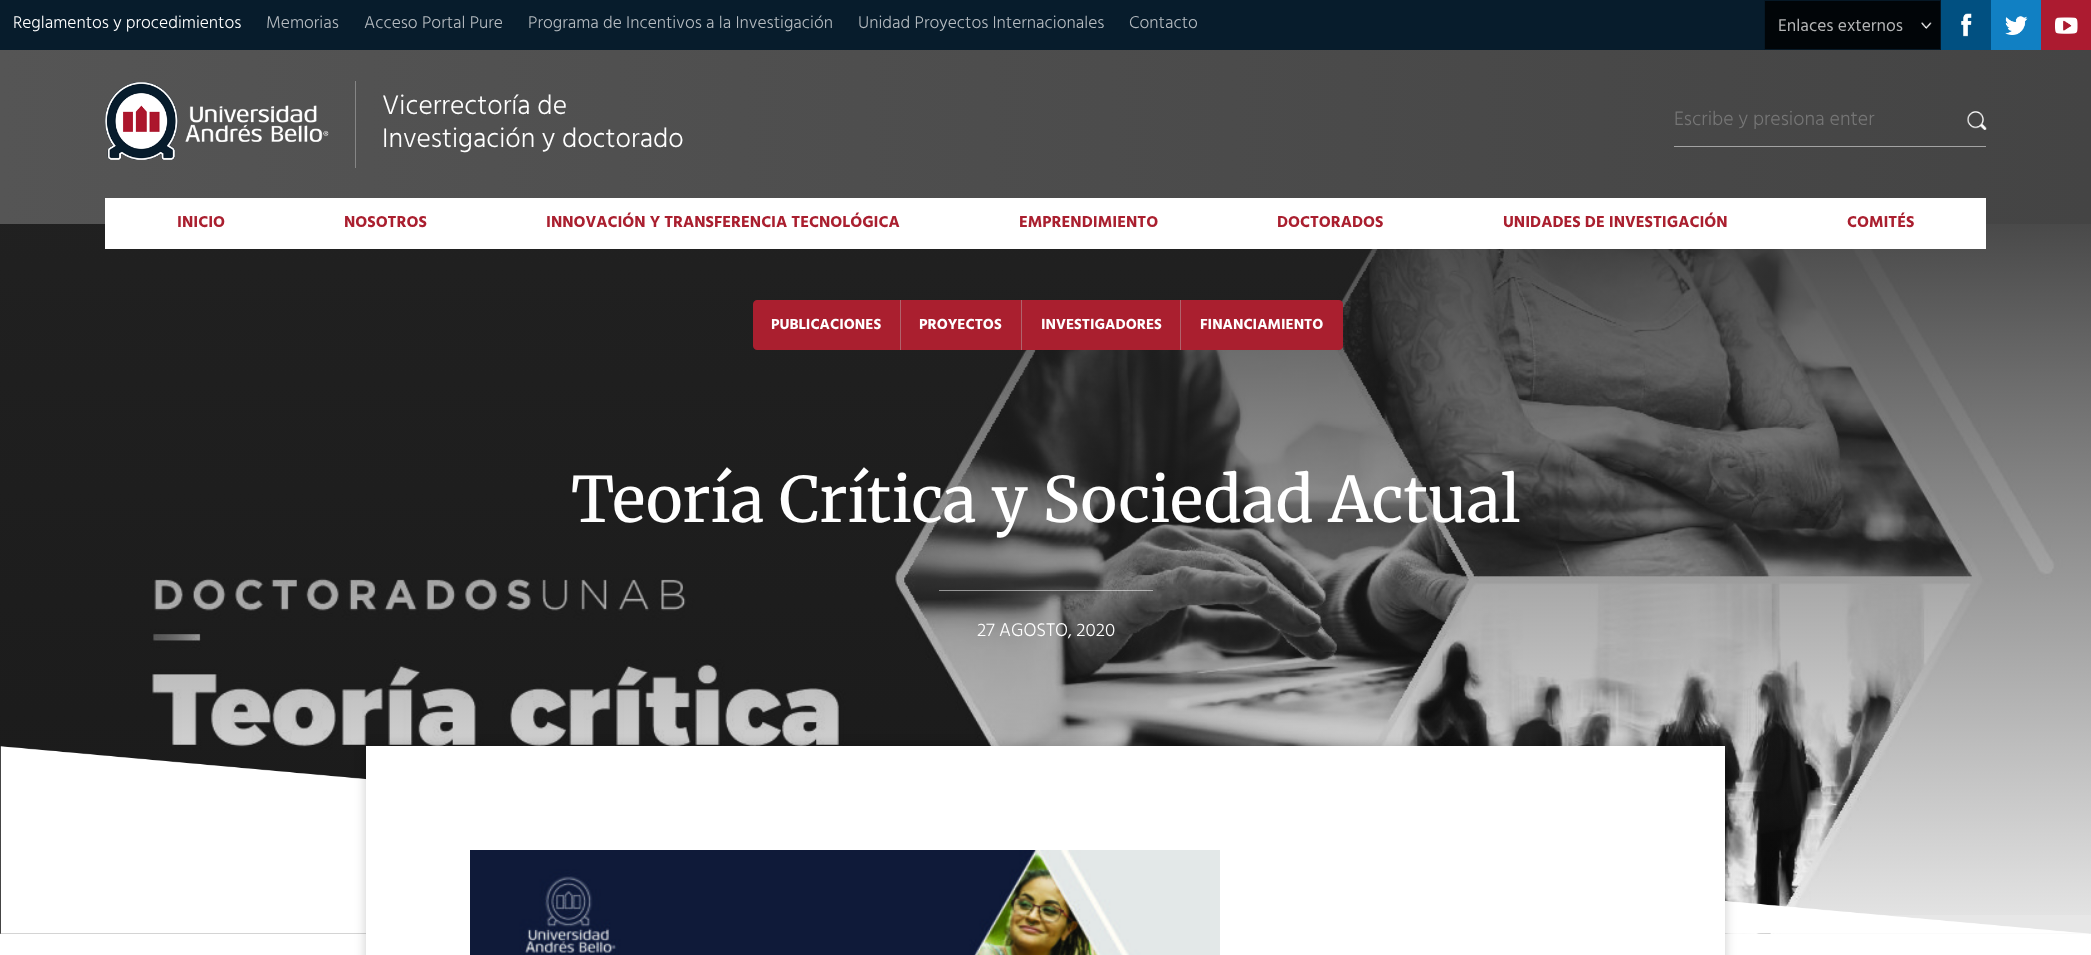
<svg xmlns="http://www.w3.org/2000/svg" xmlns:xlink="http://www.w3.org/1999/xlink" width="2091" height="955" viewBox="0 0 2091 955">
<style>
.cls-1{font:300 17.5px Hind;fill:#ffffff}
.cls-2{font:300 17.5px Hind;fill:#b5bbc0}
.cls-3{font:17.5px Hind;fill:#b3b4b5}
.cls-4{font:300 27.5px Hind;fill:#ffffff}
.cls-5{font:300 20px Hind;fill:#757575}
.cls-6{font:bold 16.25px Hind;fill:#aa1f2f}
.cls-7{font:bold 15px Hind;fill:#ffffff}
.cls-8{font:62.5px Merriweather;fill:#ffffff}
.cls-9{font:300 18.75px Hind;fill:#ffffff}
</style>
<defs>
<linearGradient id="g1" gradientUnits="userSpaceOnUse" x1="0" y1="137" x2="2091" y2="137"><stop offset="0" stop-color="#555555"/><stop offset="1" stop-color="#444444"/></linearGradient>
<linearGradient id="g2" gradientUnits="userSpaceOnUse" x1="1046" y1="224" x2="1046" y2="934"><stop offset="0" stop-color="#222222" stop-opacity="0.8"/><stop offset="1" stop-color="#222222" stop-opacity="0"/></linearGradient>
</defs>
<rect width="100%" height="100%" fill="#ffffff"/>
<rect fill="#071c2c" x="0" y="0" width="1764" height="50"/>
<rect fill="none" stroke="#061826" x="1764.5" y="0.5" width="176" height="49"/>
<rect fill="#010508" x="1765" y="1" width="175" height="48"/>
<image xlink:href="image0.png" x="1921" y="22" width="11" height="7"/>
<rect fill="#015081" x="1941" y="0" width="50" height="50"/>
<image xlink:href="image1.png" x="1961" y="13" width="11" height="24"/>
<rect fill="#1180c3" x="1991" y="0" width="50" height="50"/>
<image xlink:href="image2.png" x="2005" y="16" width="23" height="19"/>
<rect fill="#ac1b30" x="2041" y="0" width="50" height="50"/>
<image xlink:href="image3.png" x="2055" y="17" width="23" height="17"/>
<rect fill="url(#g1)" x="0" y="50" width="2091" height="174"/>
<image xlink:href="image4.png" x="105" y="82" width="224" height="78"/>
<rect fill="#868686" x="355" y="81" width="1" height="87"/>
<image xlink:href="image5.png" x="1967" y="111" width="20" height="19"/>
<rect fill="#a3a3a3" x="1674" y="146" width="312" height="1"/>
<image xlink:href="image6.png" x="0" y="224" width="2091" height="710"/>
<rect fill="url(#g2)" x="0" y="224" width="2091" height="691"/>
<rect fill="#ffffff" x="105" y="198" width="1881" height="51"/>
<path fill="#aa1f2f" d="M757 300H901V350H757C755 350 753 348 753 346V304C753 302 755 300 757 300Z"/>
<rect fill="#b0636c" x="900" y="300" width="1" height="50"/>
<rect fill="#aa1f2f" x="901" y="300" width="279" height="50"/>
<rect fill="#b0636c" x="1021" y="300" width="1" height="50"/>
<rect fill="#b0636c" x="1180" y="300" width="1" height="50"/>
<path fill="#aa1f2f" d="M1181 300H1339C1341 300 1343 302 1343 304V346C1343 348 1341 350 1339 350H1181Z"/>
<rect fill="#ffffff" fill-opacity="0.5" x="939" y="590" width="214" height="1"/>
<image xlink:href="image8.png" x="0" y="746" width="2089" height="188"/>
<rect fill="#000000" fill-opacity="0.2" filter="blur(6px)" x="366" y="746" width="1359" height="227"/>
<rect fill="#ffffff" x="366" y="746" width="1359" height="209"/>
<image xlink:href="image7.png" x="470" y="850" width="750" height="105"/>
<text class="cls-1" x="13" y="28">Reglamentos y procedimientos</text>
<text class="cls-2" x="266" y="28">Memorias</text>
<text class="cls-2" x="364" y="28">Acceso Portal Pure</text>
<text class="cls-2" x="528" y="28">Programa de Incentivos a la Investigación</text>
<text class="cls-2" x="858" y="28">Unidad Proyectos Internacionales</text>
<text class="cls-2" x="1129" y="28">Contacto</text>
<text class="cls-3" x="1778" y="31">Enlaces externos</text>
<text class="cls-4"><tspan x="382" y="114">Vicerrectoría de</tspan><tspan x="382" y="147">Investigación y doctorado</tspan></text>
<text class="cls-5" x="1674" y="125">Escribe y presiona enter</text>
<text class="cls-6" x="177" y="227">INICIO</text>
<text class="cls-6" x="344" y="227">NOSOTROS</text>
<text class="cls-6" x="546" y="227">INNOVACIÓN Y TRANSFERENCIA TECNOLÓGICA</text>
<text class="cls-6" x="1019" y="227">EMPRENDIMIENTO</text>
<text class="cls-6" x="1277" y="227">DOCTORADOS</text>
<text class="cls-6" x="1503" y="227">UNIDADES DE INVESTIGACIÓN</text>
<text class="cls-6" x="1847" y="227">COMITÉS</text>
<text class="cls-7" x="771" y="329">PUBLICACIONES</text>
<text class="cls-7" x="919" y="329">PROYECTOS</text>
<text class="cls-7" x="1041" y="329">INVESTIGADORES</text>
<text class="cls-7" x="1200" y="329">FINANCIAMIENTO</text>
<text class="cls-8" x="571" y="522">Teoría Crítica y Sociedad Actual</text>
<text class="cls-9" x="977" y="636">27 AGOSTO, 2020</text>
</svg>
